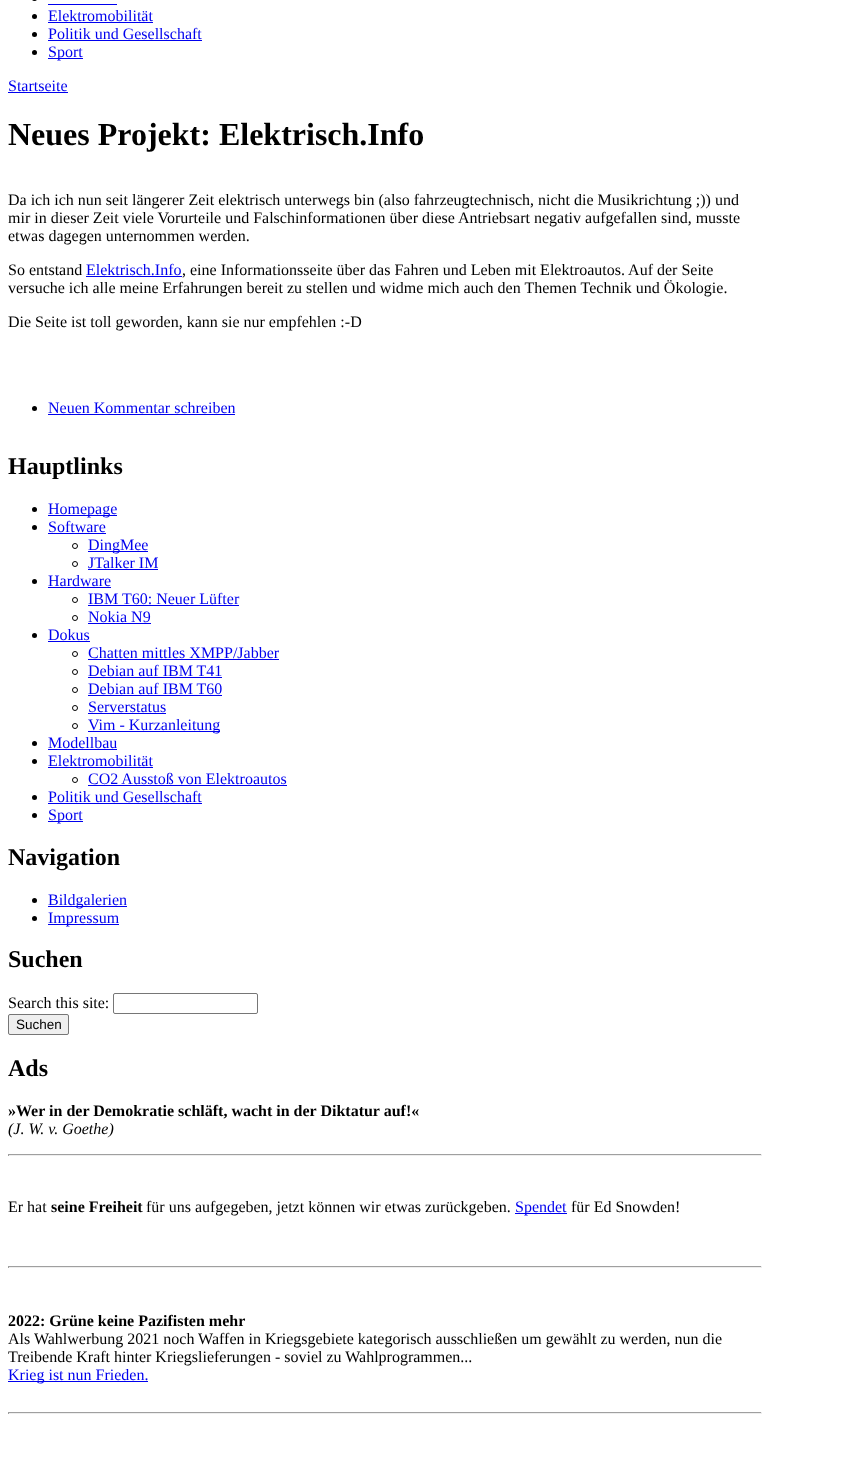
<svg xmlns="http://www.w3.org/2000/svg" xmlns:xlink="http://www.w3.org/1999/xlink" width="854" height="1463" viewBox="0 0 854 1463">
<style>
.cls-1{font:16px Liberation Serif;fill:#0000ee}
.cls-2{font:bold 32px Liberation Serif;fill:#000000}
.cls-3{font:16px Liberation Serif;fill:#000000}
.cls-4{font:bold 24px Liberation Serif;fill:#000000}
.cls-5{font:13.5px Liberation Sans;fill:#000000}
.cls-6{font:bold 16px Liberation Serif;fill:#000000}
.cls-7{font:italic 16px Liberation Serif;fill:#000000}
</style>
<rect width="100%" height="100%" fill="#ffffff"/>
<rect fill="#000000" x="32" y="-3" width="5" height="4" rx="2.5"/>
<rect fill="#0000ee" x="48" y="4" width="69" height="1"/>
<circle fill="#000000" cx="34.5" cy="16.5" r="2.5"/>
<rect fill="#0000ee" x="48" y="22" width="105" height="1"/>
<circle fill="#000000" cx="34.5" cy="34.5" r="2.5"/>
<rect fill="#0000ee" x="48" y="40" width="154" height="1"/>
<circle fill="#000000" cx="34.5" cy="52.5" r="2.5"/>
<rect fill="#0000ee" x="48" y="58" width="35" height="1"/>
<rect fill="#0000ee" x="8" y="92" width="60" height="1"/>
<rect fill="#0000ee" x="86" y="276" width="96" height="1"/>
<circle fill="#000000" cx="34.5" cy="408.5" r="2.5"/>
<rect fill="#0000ee" x="48" y="414" width="187" height="1"/>
<circle fill="#000000" cx="34.5" cy="509.5" r="2.5"/>
<rect fill="#0000ee" x="48" y="515" width="69" height="1"/>
<circle fill="#000000" cx="34.5" cy="527.5" r="2.5"/>
<rect fill="#0000ee" x="48" y="533" width="58" height="1"/>
<circle fill="none" stroke="#000000" cx="75" cy="546" r="2.5"/>
<rect fill="#0000ee" x="88" y="551" width="60" height="1"/>
<circle fill="none" stroke="#000000" cx="75" cy="564" r="2.5"/>
<rect fill="#0000ee" x="88" y="569" width="70" height="1"/>
<circle fill="#000000" cx="34.5" cy="581.5" r="2.5"/>
<rect fill="#0000ee" x="48" y="587" width="63" height="1"/>
<circle fill="none" stroke="#000000" cx="75" cy="600" r="2.5"/>
<rect fill="#0000ee" x="88" y="605" width="151" height="1"/>
<circle fill="none" stroke="#000000" cx="75" cy="618" r="2.5"/>
<rect fill="#0000ee" x="88" y="623" width="63" height="1"/>
<circle fill="#000000" cx="34.5" cy="635.5" r="2.5"/>
<rect fill="#0000ee" x="48" y="641" width="42" height="1"/>
<circle fill="none" stroke="#000000" cx="75" cy="654" r="2.5"/>
<rect fill="#0000ee" x="88" y="659" width="191" height="1"/>
<circle fill="none" stroke="#000000" cx="75" cy="672" r="2.5"/>
<rect fill="#0000ee" x="88" y="677" width="134" height="1"/>
<circle fill="none" stroke="#000000" cx="75" cy="690" r="2.5"/>
<rect fill="#0000ee" x="88" y="695" width="134" height="1"/>
<circle fill="none" stroke="#000000" cx="75" cy="708" r="2.5"/>
<rect fill="#0000ee" x="88" y="713" width="78" height="1"/>
<circle fill="none" stroke="#000000" cx="75" cy="726" r="2.5"/>
<rect fill="#0000ee" x="88" y="731" width="132" height="1"/>
<circle fill="#000000" cx="34.5" cy="743.5" r="2.5"/>
<rect fill="#0000ee" x="48" y="749" width="69" height="1"/>
<circle fill="#000000" cx="34.5" cy="761.5" r="2.5"/>
<rect fill="#0000ee" x="48" y="767" width="105" height="1"/>
<circle fill="none" stroke="#000000" cx="75" cy="780" r="2.5"/>
<rect fill="#0000ee" x="88" y="785" width="199" height="1"/>
<circle fill="#000000" cx="34.5" cy="797.5" r="2.5"/>
<rect fill="#0000ee" x="48" y="803" width="154" height="1"/>
<circle fill="#000000" cx="34.5" cy="815.5" r="2.5"/>
<rect fill="#0000ee" x="48" y="821" width="35" height="1"/>
<circle fill="#000000" cx="34.5" cy="900.5" r="2.5"/>
<rect fill="#0000ee" x="48" y="906" width="79" height="1"/>
<circle fill="#000000" cx="34.5" cy="918.5" r="2.5"/>
<rect fill="#0000ee" x="48" y="924" width="71" height="1"/>
<rect fill="none" stroke="#767676" x="113.5" y="993.5" width="144" height="20" rx="1.5"/>
<rect fill="#efefef" stroke="#767676" x="8.5" y="1014.5" width="60" height="20" rx="1.5"/>
<rect fill="#9f9f9f" x="8" y="1154" width="754" height="1"/>
<rect fill="#eeeeee" x="761" y="1154" width="1" height="2"/>
<rect fill="#eeeeee" x="8" y="1155" width="754" height="1"/>
<rect fill="#9f9f9f" x="8" y="1154" width="1" height="2"/>
<rect fill="#0000ee" x="515" y="1213" width="52" height="1"/>
<rect fill="#9f9f9f" x="8" y="1266" width="754" height="1"/>
<rect fill="#eeeeee" x="761" y="1266" width="1" height="2"/>
<rect fill="#eeeeee" x="8" y="1267" width="754" height="1"/>
<rect fill="#9f9f9f" x="8" y="1266" width="1" height="2"/>
<rect fill="#0000ee" x="8" y="1381" width="140" height="1"/>
<rect fill="#9f9f9f" x="8" y="1412" width="754" height="1"/>
<rect fill="#eeeeee" x="761" y="1412" width="1" height="2"/>
<rect fill="#eeeeee" x="8" y="1413" width="754" height="1"/>
<rect fill="#9f9f9f" x="8" y="1412" width="1" height="2"/>
<text class="cls-1"><tspan x="48" y="21">Elektromobilität</tspan><tspan x="48" y="39">Politik und Gesellschaft</tspan><tspan x="48" y="57">Sport</tspan></text>
<text class="cls-1" x="8" y="91">Startseite</text>
<text class="cls-2" x="8" y="145">Neues Projekt: Elektrisch.Info</text>
<text class="cls-3"><tspan x="8" y="205">Da ich ich nun seit längerer Zeit elektrisch unterwegs bin (also fahrzeugtechnisch, nicht die Musikrichtung ;)) und</tspan><tspan x="8" y="223">mir in dieser Zeit viele Vorurteile und Falschinformationen über diese Antriebsart negativ aufgefallen sind, musste</tspan><tspan x="8" y="241">etwas dagegen unternommen werden.</tspan></text>
<text class="cls-3" x="8" y="275">So entstand</text>
<text class="cls-1" x="86" y="275">Elektrisch.Info</text>
<text class="cls-3" x="182" y="275">, eine Informationsseite über das Fahren und Leben mit Elektroautos. Auf der Seite</text>
<text class="cls-3" x="8" y="293">versuche ich alle meine Erfahrungen bereit zu stellen und widme mich auch den Themen Technik und Ökologie.</text>
<text class="cls-3" x="8" y="327">Die Seite ist toll geworden, kann sie nur empfehlen :-D</text>
<text class="cls-1" x="48" y="413">Neuen Kommentar schreiben</text>
<text class="cls-4" x="8" y="474">Hauptlinks</text>
<text class="cls-1"><tspan x="48" y="514">Homepage</tspan><tspan x="48" y="532">Software</tspan></text>
<text class="cls-1"><tspan x="88" y="550">DingMee</tspan><tspan x="88" y="568">JTalker IM</tspan></text>
<text class="cls-1" x="48" y="586">Hardware</text>
<text class="cls-1"><tspan x="88" y="604">IBM T60: Neuer Lüfter</tspan><tspan x="88" y="622">Nokia N9</tspan></text>
<text class="cls-1" x="48" y="640">Dokus</text>
<text class="cls-1"><tspan x="88" y="658">Chatten mittles XMPP/Jabber</tspan><tspan x="88" y="676">Debian auf IBM T41</tspan><tspan x="88" y="694">Debian auf IBM T60</tspan><tspan x="88" y="712">Serverstatus</tspan><tspan x="88" y="730">Vim - Kurzanleitung</tspan></text>
<text class="cls-1"><tspan x="48" y="748">Modellbau</tspan><tspan x="48" y="766">Elektromobilität</tspan></text>
<text class="cls-1" x="88" y="784">CO2 Ausstoß von Elektroautos</text>
<text class="cls-1"><tspan x="48" y="802">Politik und Gesellschaft</tspan><tspan x="48" y="820">Sport</tspan></text>
<text class="cls-4" x="8" y="865">Navigation</text>
<text class="cls-1"><tspan x="48" y="905">Bildgalerien</tspan><tspan x="48" y="923">Impressum</tspan></text>
<text class="cls-4" x="8" y="967">Suchen</text>
<text class="cls-3" x="8" y="1008">Search this site:</text>
<text class="cls-5" x="16" y="1029">Suchen</text>
<text class="cls-4" x="8" y="1076">Ads</text>
<text class="cls-6" x="8" y="1116">»Wer in der Demokratie schläft, wacht in der Diktatur auf!«</text>
<text class="cls-7" x="8" y="1134">(J. W. v. Goethe)</text>
<text class="cls-3" x="8" y="1212">Er hat</text>
<text class="cls-6" x="51" y="1212">seine Freiheit</text>
<text class="cls-3" x="146" y="1212">für uns aufgegeben, jetzt können wir etwas zurückgeben.</text>
<text class="cls-1" x="515" y="1212">Spendet</text>
<text class="cls-3" x="571" y="1212">für Ed Snowden!</text>
<text class="cls-6" x="8" y="1326">2022: Grüne keine Pazifisten mehr</text>
<text class="cls-3"><tspan x="8" y="1344">Als Wahlwerbung 2021 noch Waffen in Kriegsgebiete kategorisch ausschließen um gewählt zu werden, nun die</tspan><tspan x="8" y="1362">Treibende Kraft hinter Kriegslieferungen - soviel zu Wahlprogrammen...</tspan></text>
<text class="cls-1" x="8" y="1380">Krieg ist nun Frieden.</text>
</svg>
